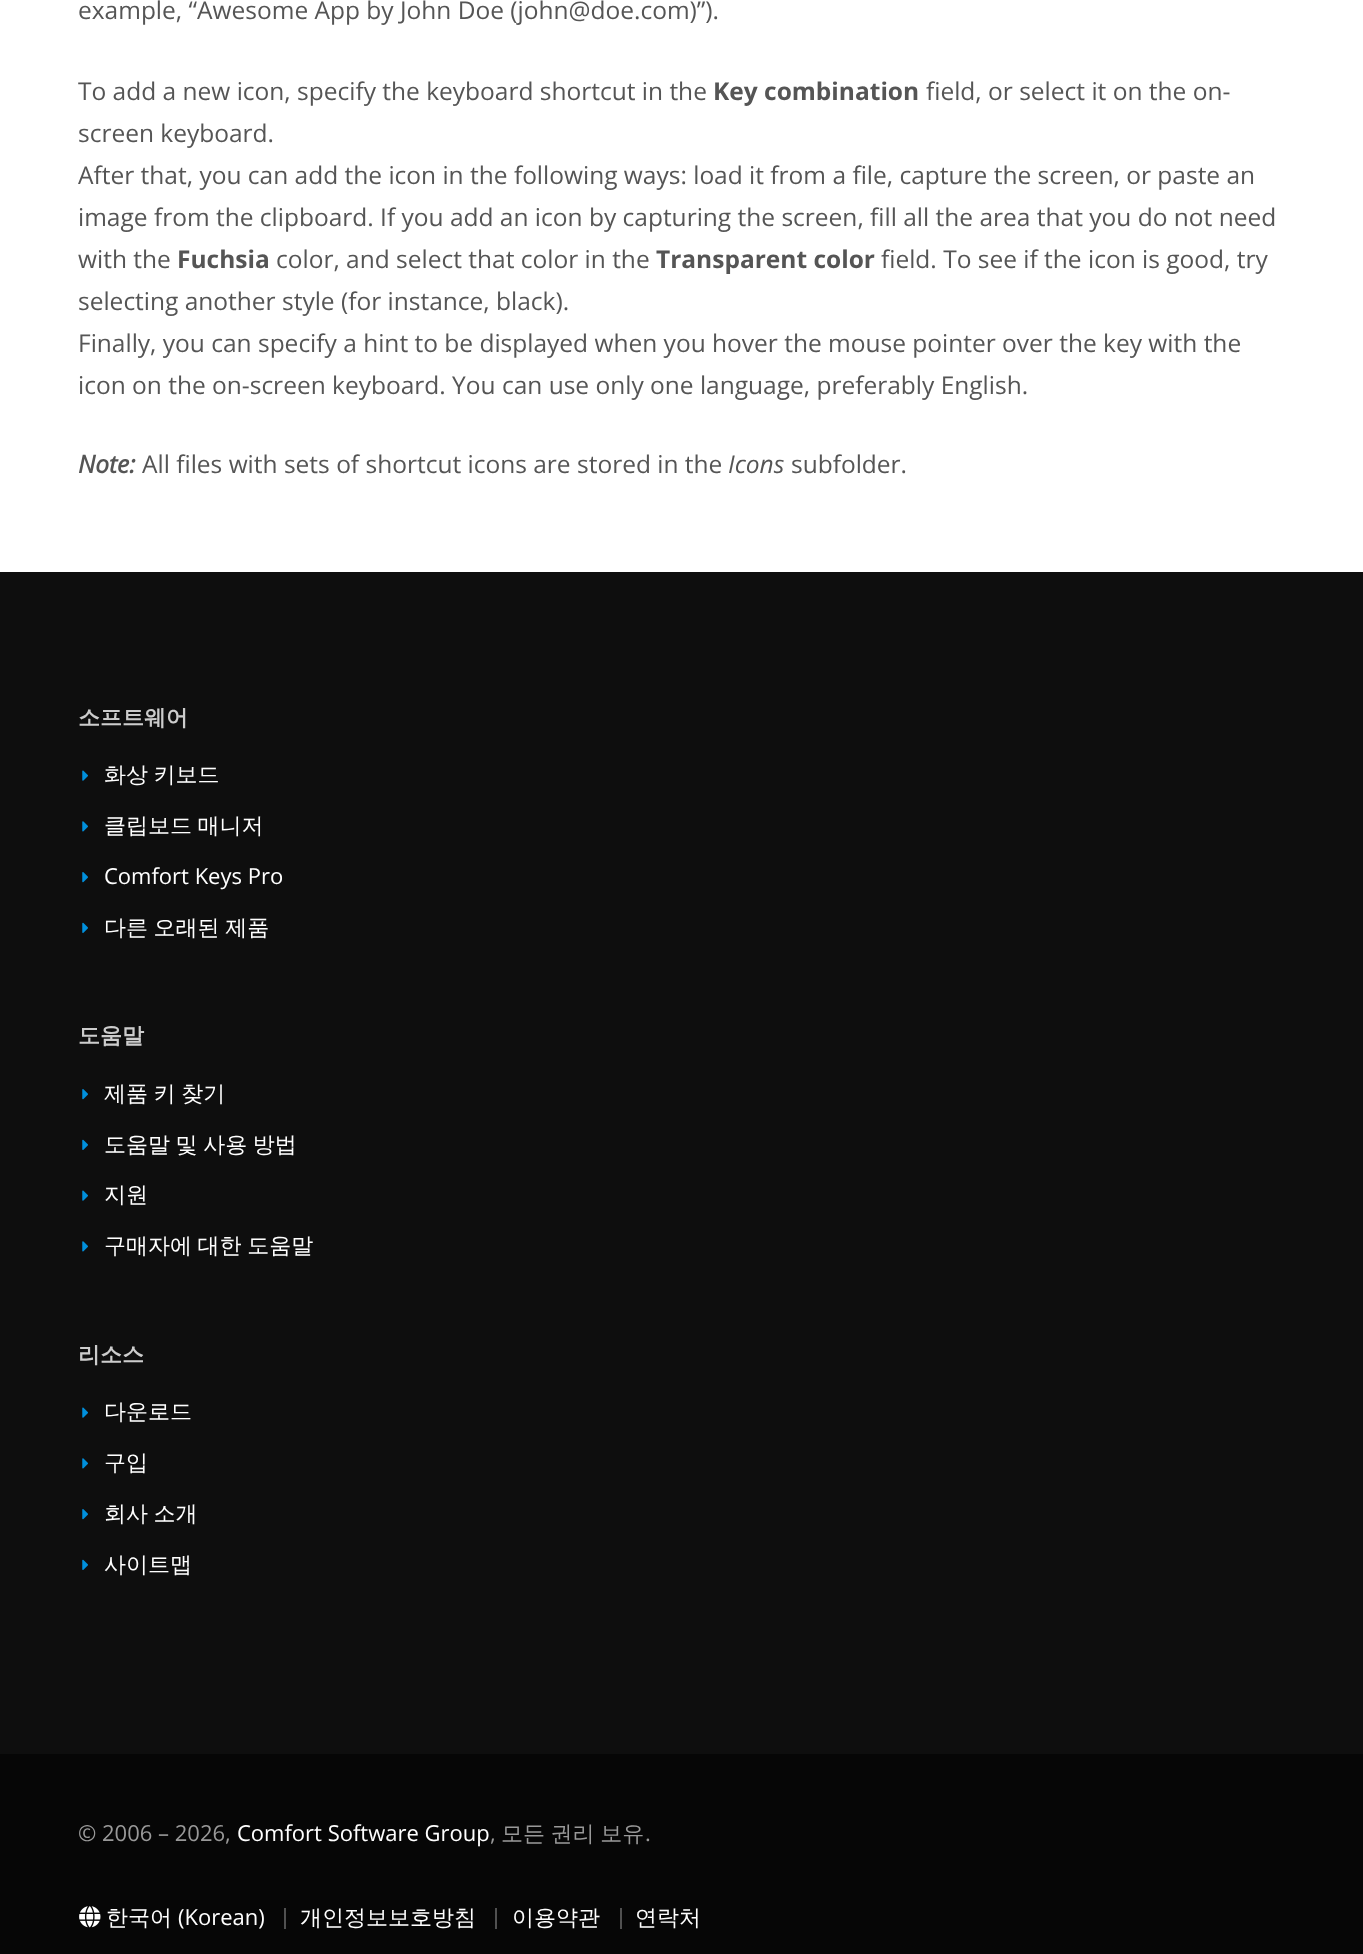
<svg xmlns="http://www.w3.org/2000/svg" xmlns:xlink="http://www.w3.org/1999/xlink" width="1363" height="1954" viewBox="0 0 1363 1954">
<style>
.cls-1{font:24.5px Open Sans;fill:#555555}
.cls-2{font:bold 24.5px Open Sans;fill:#555555}
.cls-3{font:italic bold 24.5px Open Sans;fill:#555555}
.cls-4{font:italic 24.5px Open Sans;fill:#555555}
.cls-5{font:bold 22px WenQuanYi Zen Hei;fill:#cccccc}
.cls-6{font:500 22px WenQuanYi Zen Hei;fill:#ffffff}
.cls-7{font:22px Open Sans;fill:#ffffff}
.cls-8{font:22px Open Sans;fill:#999999}
.cls-9{font:500 22px WenQuanYi Zen Hei;fill:#999999}
</style>
<rect width="100%" height="100%" fill="#ffffff"/>
<rect fill="#0e0e0e" x="0" y="572" width="1363" height="1182"/>
<image xlink:href="image0.png" x="82" y="770" width="6" height="11"/>
<image xlink:href="image1.png" x="82" y="821" width="6" height="11"/>
<image xlink:href="image2.png" x="82" y="872" width="6" height="11"/>
<image xlink:href="image3.png" x="82" y="922" width="6" height="11"/>
<image xlink:href="image2.png" x="82" y="1089" width="6" height="11"/>
<image xlink:href="image3.png" x="82" y="1139" width="6" height="11"/>
<image xlink:href="image0.png" x="82" y="1190" width="6" height="11"/>
<image xlink:href="image1.png" x="82" y="1241" width="6" height="11"/>
<image xlink:href="image0.png" x="82" y="1407" width="6" height="11"/>
<image xlink:href="image1.png" x="82" y="1458" width="6" height="11"/>
<image xlink:href="image2.png" x="82" y="1509" width="6" height="11"/>
<image xlink:href="image3.png" x="82" y="1559" width="6" height="11"/>
<rect fill="#060606" x="0" y="1754" width="1363" height="200"/>
<image xlink:href="image4.png" x="79" y="1906" width="22" height="22"/>
<rect fill="#505050" x="284" y="1908" width="2" height="21"/>
<rect fill="#505050" x="495" y="1908" width="2" height="21"/>
<rect fill="#505050" x="620" y="1908" width="2" height="21"/>
<text class="cls-1" x="78" y="19">example, “Awesome App by John Doe (john@doe.com)”).</text>
<text class="cls-1" x="78" y="100">To add a new icon, specify the keyboard shortcut in the</text>
<text class="cls-2" x="713" y="100">Key combination</text>
<text class="cls-1" x="926" y="100">field, or select it on the on-</text>
<text class="cls-1"><tspan x="78" y="142">screen keyboard.</tspan><tspan x="78" y="184">After that, you can add the icon in the following ways: load it from a file, capture the screen, or paste an</tspan><tspan x="78" y="226">image from the clipboard. If you add an icon by capturing the screen, fill all the area that you do not need</tspan><tspan x="78" y="268">with the</tspan></text>
<text class="cls-2" x="177" y="268">Fuchsia</text>
<text class="cls-1" x="276" y="268">color, and select that color in the</text>
<text class="cls-2" x="656" y="268">Transparent color</text>
<text class="cls-1" x="881" y="268">field. To see if the icon is good, try</text>
<text class="cls-1"><tspan x="78" y="310">selecting another style (for instance, black).</tspan><tspan x="78" y="352">Finally, you can specify a hint to be displayed when you hover the mouse pointer over the key with the</tspan><tspan x="78" y="394">icon on the on-screen keyboard. You can use only one language, preferably English.</tspan></text>
<text class="cls-3" x="78" y="473">Note:</text>
<text class="cls-1" x="142" y="473">All files with sets of shortcut icons are stored in the</text>
<text class="cls-4" x="728" y="473">Icons</text>
<text class="cls-1" x="791" y="473">subfolder.</text>
<text class="cls-5" x="78" y="725">소프트웨어</text>
<text class="cls-6" x="104" y="782" word-spacing="-1">화상 키보드</text>
<text class="cls-6" x="104" y="833" word-spacing="-1">클립보드 매니저</text>
<text class="cls-7" x="104" y="884">Comfort Keys Pro</text>
<text class="cls-6" x="104" y="935" word-spacing="-1">다른 오래된 제품</text>
<text class="cls-5" x="78" y="1043">도움말</text>
<text class="cls-6" x="104" y="1101" word-spacing="-1">제품 키 찾기</text>
<text class="cls-6" x="104" y="1152" word-spacing="-1">도움말 및 사용 방법</text>
<text class="cls-6" x="104" y="1202">지원</text>
<text class="cls-6" x="104" y="1253" word-spacing="-1">구매자에 대한 도움말</text>
<text class="cls-5" x="78" y="1362">리소스</text>
<text class="cls-6" x="104" y="1419">다운로드</text>
<text class="cls-6" x="104" y="1470">구입</text>
<text class="cls-6" x="104" y="1521" word-spacing="-1">회사 소개</text>
<text class="cls-6" x="104" y="1572">사이트맵</text>
<text class="cls-8" x="78" y="1841">© 2006 – 2026,</text>
<text class="cls-7" x="237" y="1841">Comfort Software Group</text>
<text class="cls-8" x="490" y="1841">,</text>
<text class="cls-9" x="501" y="1841" word-spacing="-1">모든 권리 보유</text>
<text class="cls-8" x="645" y="1841">.</text>
<text class="cls-6" x="106" y="1925">한국어</text>
<text class="cls-7" x="178" y="1925">(Korean)</text>
<text class="cls-6" x="300" y="1925">개인정보보호방침</text>
<text class="cls-6" x="512" y="1925">이용약관</text>
<text class="cls-6" x="635" y="1925">연락처</text>
</svg>
